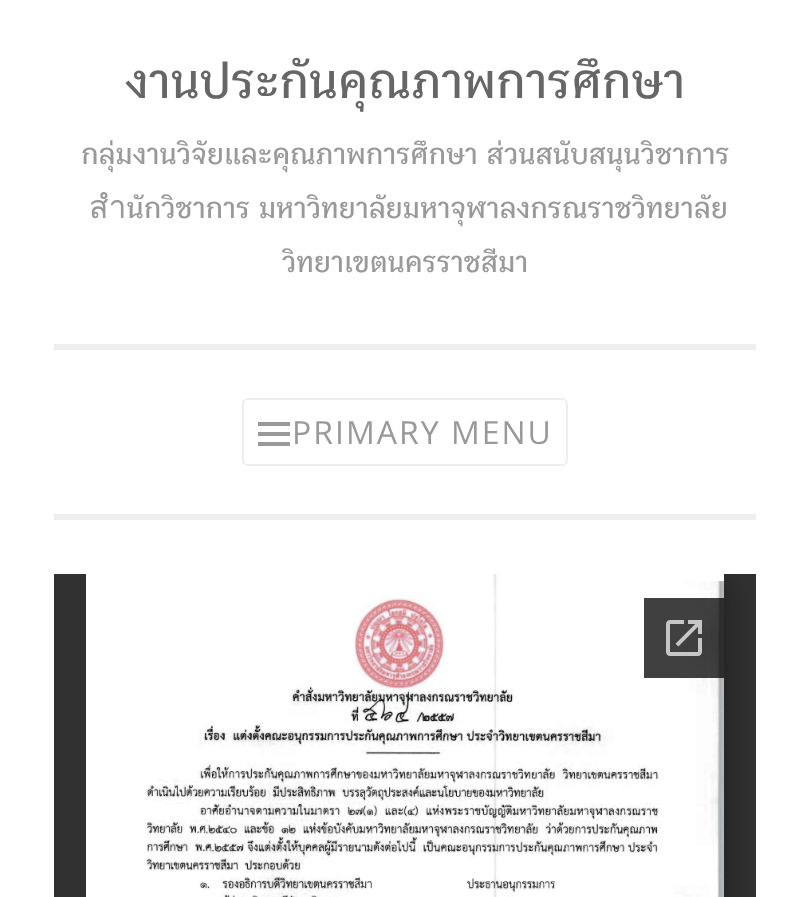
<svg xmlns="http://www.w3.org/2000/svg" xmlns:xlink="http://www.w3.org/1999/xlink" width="810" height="897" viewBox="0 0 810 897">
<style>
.cls-1{font:500 54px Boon;fill:#666666}
.cls-2{font:500 32px Boon;fill:#999999}
.cls-3{font:32px Open Sans;letter-spacing:2px;fill:#999999}
</style>
<rect width="100%" height="100%" fill="#ffffff"/>
<rect fill="#eeeeee" x="54" y="514" width="702" height="6"/>
<rect fill="#eeeeee" x="54" y="344" width="702" height="6"/>
<rect fill="none" stroke="#eeeeee" stroke-width="2" x="243" y="399" width="324" height="66" rx="5"/>
<image xlink:href="image0.png" x="258" y="422" width="32" height="24"/>
<image xlink:href="image1.png" x="54" y="574" width="702" height="323"/>
<text class="cls-1" x="125" y="98">งานประกันคุณภาพการศึกษา</text>
<text class="cls-2" x="81" y="164">กลุ่มงานวิจัยและคุณภาพการศึกษา ส่วนสนับสนุนวิชาการ</text>
<text class="cls-2" x="89" y="218">สำนักวิชาการ มหาวิทยาลัยมหาจุฬาลงกรณราชวิทยาลัย</text>
<text class="cls-2" x="282" y="272">วิทยาเขตนครราชสีมา</text>
<text class="cls-3" x="292" y="444">PRIMARY MENU</text>
</svg>
